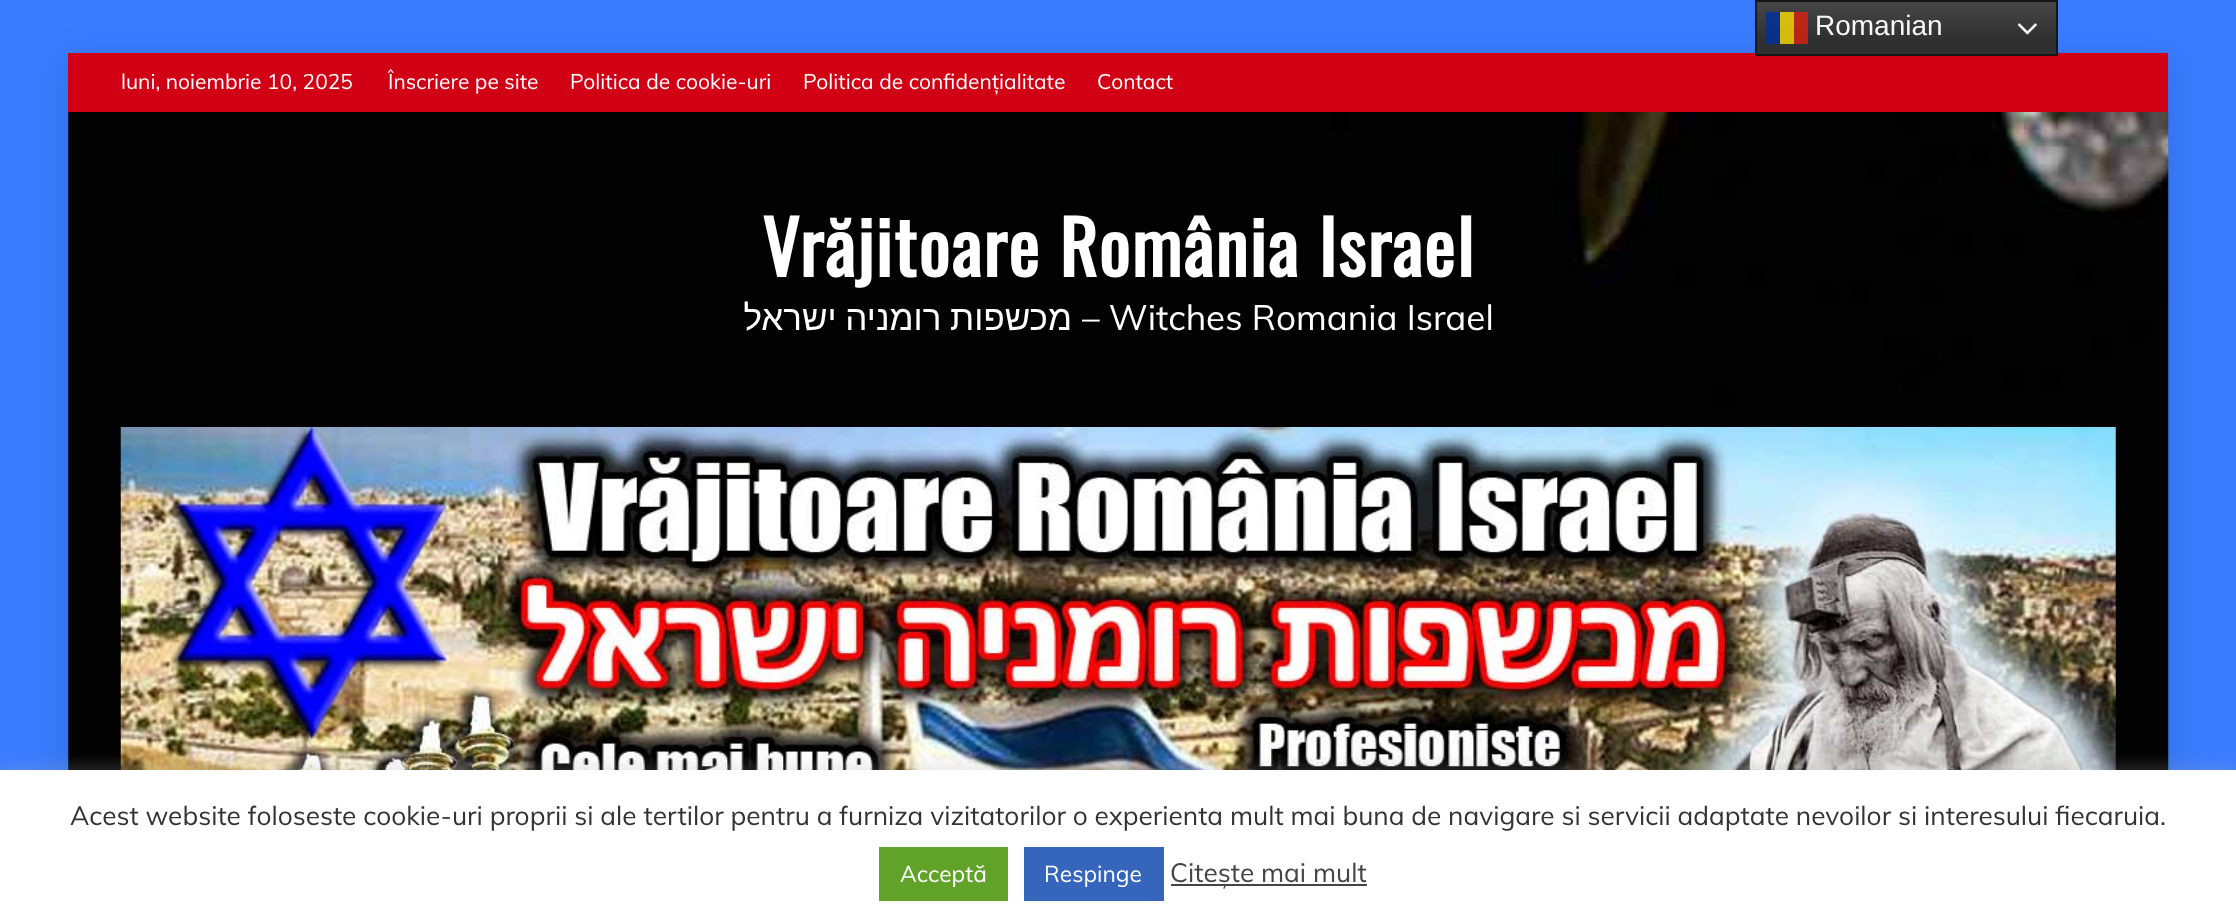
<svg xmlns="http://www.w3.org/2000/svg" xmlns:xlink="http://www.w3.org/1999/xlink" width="2236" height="921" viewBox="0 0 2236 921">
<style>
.cls-1{font:28px Liberation Sans;fill:#f7f7f7}
.cls-2{font:21px Muli;fill:#ffffff}
.cls-3{font:bold 73.5px Oswald;letter-spacing:1.75px;fill:#ffffff}
.cls-4{font:35px Liberation Sans;direction:rtl;fill:#ffffff}
.cls-5{font:35px Muli;fill:#ffffff}
.cls-6{font:26.25px Muli;fill:#333333}
.cls-7{font:22.75px Muli;fill:#ffffff}
.cls-8{font:26.25px Muli;fill:#444444}
</style>
<defs>
<linearGradient id="g1" gradientUnits="userSpaceOnUse" x1="1907" y1="0" x2="1907" y2="56"><stop offset="0" stop-color="#474747"/><stop offset="0.7" stop-color="#303030"/></linearGradient>
</defs>
<rect width="100%" height="100%" fill="#3a7cff"/>
<rect fill="#000000" fill-opacity="0.1" filter="blur(16.5px)" x="65" y="58" width="2107" height="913"/>
<rect fill="#d10014" x="68" y="53" width="2100" height="59"/>
<rect fill="url(#g1)" x="1757" y="2" width="299" height="52"/>
<rect fill="none" stroke="#161616" stroke-width="2" x="1756" y="1" width="301" height="54"/>
<rect fill="#00319c" fill-opacity="0.8" x="1766" y="12" width="14" height="32"/>
<rect fill="#ffde00" fill-opacity="0.8" x="1780" y="12" width="14" height="32"/>
<rect fill="#de2110" fill-opacity="0.8" x="1794" y="12" width="14" height="32"/>
<image xlink:href="image0.png" x="2018" y="23" width="19" height="12"/>
<image xlink:href="image1.png" x="68" y="112" width="2101" height="658"/>
<image xlink:href="image2.png" x="120" y="427" width="1996" height="343"/>
<rect fill="#acabab" fill-opacity="0.3" filter="blur(9px)" x="0" y="768" width="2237" height="153"/>
<rect fill="#ffffff" x="0" y="770" width="2236" height="151"/>
<rect fill="#61a229" x="879" y="847" width="129" height="54"/>
<rect fill="#3566bb" x="1024" y="847" width="140" height="54"/>
<rect fill="#444444" x="1171" y="884" width="196" height="2"/>
<text class="cls-1" x="1815" y="35">Romanian</text>
<text class="cls-2" x="121" y="89">luni, noiembrie 10, 2025</text>
<text class="cls-2" x="388" y="89">Înscriere pe site</text>
<text class="cls-2" x="570" y="89">Politica de cookie-uri</text>
<text class="cls-2" x="803" y="89">Politica de confidențialitate</text>
<text class="cls-2" x="1097" y="89">Contact</text>
<text class="cls-3" x="762" y="277">Vrăjitoare România Israel</text>
<text class="cls-4" x="1072" y="330" word-spacing="-1">מכשפות רומניה ישראל</text>
<text class="cls-5" x="1082" y="330">– Witches Romania Israel</text>
<text class="cls-6" x="70" y="825">Acest website foloseste cookie-uri proprii si ale tertilor pentru a furniza vizitatorilor o experienta mult mai buna de navigare si servicii adaptate nevoilor si interesului fiecaruia.</text>
<text class="cls-7" x="900" y="882">Acceptă</text>
<text class="cls-7" x="1044" y="882">Respinge</text>
<text class="cls-8" x="1170" y="882">Citește mai mult</text>
</svg>
